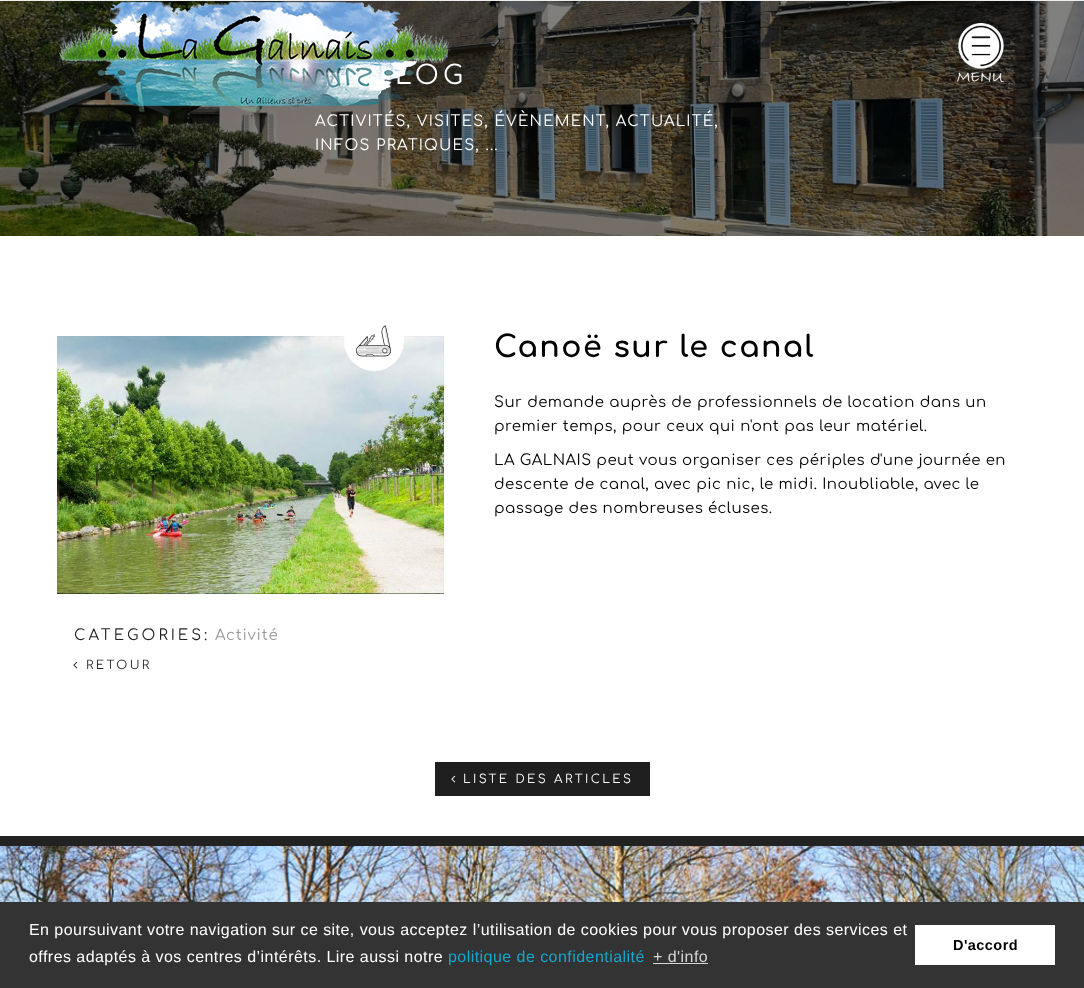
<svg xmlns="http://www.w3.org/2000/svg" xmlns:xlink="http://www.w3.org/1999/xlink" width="1084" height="988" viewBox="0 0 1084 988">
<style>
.cls-1{font:26px Comfortaa;letter-spacing:5px;fill:#ffffff}
.cls-2{font:15px Comfortaa;letter-spacing:1.2px;fill:#ffffff}
.cls-3{font:bold 30px Comfortaa;letter-spacing:1.5px;fill:#000000}
.cls-4{font:15px Comfortaa;letter-spacing:0.45px;fill:#000000}
.cls-5{font:15px Comfortaa;letter-spacing:3px;fill:#1f1f1f}
.cls-6{font:15px Comfortaa;letter-spacing:0.75px;fill:#999999}
.cls-7{font:12px Comfortaa;letter-spacing:2.4px;fill:#1f1f1f}
.cls-8{font:12px Comfortaa;letter-spacing:2.4px;fill:#ffffff}
.cls-9{font:16px Liberation Sans;letter-spacing:0.45px;fill:#ffffff}
.cls-10{font:16px Liberation Sans;letter-spacing:0.45px;fill:#14a7d0}
.cls-11{font:16px Liberation Sans;letter-spacing:0.45px;fill:#d6d6d6}
.cls-12{font:bold 14.5px Liberation Sans;letter-spacing:0.45px;fill:#000000}
</style>
<rect width="100%" height="100%" fill="#ffffff"/>
<rect fill="#eeeeee" x="0" y="0" width="1084" height="1"/>
<image xlink:href="image2.png" x="0" y="1" width="1084" height="235"/>
<image xlink:href="image1.png" x="957" y="23" width="47" height="60"/>
<image xlink:href="image4.png" x="57" y="336" width="387" height="258"/>
<circle fill="#ffffff" cx="374" cy="341" r="30"/>
<image xlink:href="image3.png" x="356" y="325" width="35" height="32"/>
<image xlink:href="image5.png" x="73" y="661" width="5" height="8"/>
<rect fill="#1f1f1f" x="435" y="762" width="215" height="34"/>
<image xlink:href="image6.png" x="451" y="775" width="5" height="8"/>
<rect fill="#222222" x="0" y="836" width="1084" height="10"/>
<image xlink:href="image7.png" x="0" y="846" width="1084" height="56"/>
<rect fill="#333333" x="0" y="902" width="1084" height="86"/>
<rect fill="#d6d6d6" x="653" y="963" width="55" height="1"/>
<rect fill="#ffffff" x="915" y="925" width="140" height="40"/>
<text class="cls-1" x="395" y="84">LOG</text>
<text class="cls-2" x="315" y="126">ACTIVITÉS, VISITES, ÉVÈNEMENT, ACTUALITÉ,</text>
<image xlink:href="image0.png" x="58" y="1" width="393" height="111"/>
<text class="cls-2" x="315" y="150">INFOS PRATIQUES, ...</text>
<text class="cls-3" x="494" y="357">Canoë sur le canal</text>
<text class="cls-4"><tspan x="494" y="407">Sur demande auprès de professionnels de location dans un</tspan><tspan x="494" y="431">premier temps, pour ceux qui n'ont pas leur matériel.</tspan></text>
<text class="cls-4"><tspan x="494" y="465">LA GALNAIS peut vous organiser ces périples d'une journée en</tspan><tspan x="494" y="489">descente de canal, avec pic nic, le midi. Inoubliable, avec le</tspan><tspan x="494" y="513">passage des nombreuses écluses.</tspan></text>
<text class="cls-5" x="74" y="640">CATEGORIES:</text>
<text class="cls-6" x="215" y="640">Activité</text>
<text class="cls-7" x="86" y="669">RETOUR</text>
<text class="cls-8" x="463" y="783">LISTE DES ARTICLES</text>
<text class="cls-9"><tspan x="29" y="935">En poursuivant votre navigation sur ce site, vous acceptez l’utilisation de cookies pour vous proposer des services et</tspan><tspan x="29" y="962">offres adaptés à vos centres d’intérêts. Lire aussi notre</tspan></text>
<text class="cls-10" x="448" y="962">politique de confidentialité</text>
<text class="cls-11" x="653" y="962">+ d'info</text>
<text class="cls-12" x="953" y="950">D'accord</text>
</svg>
